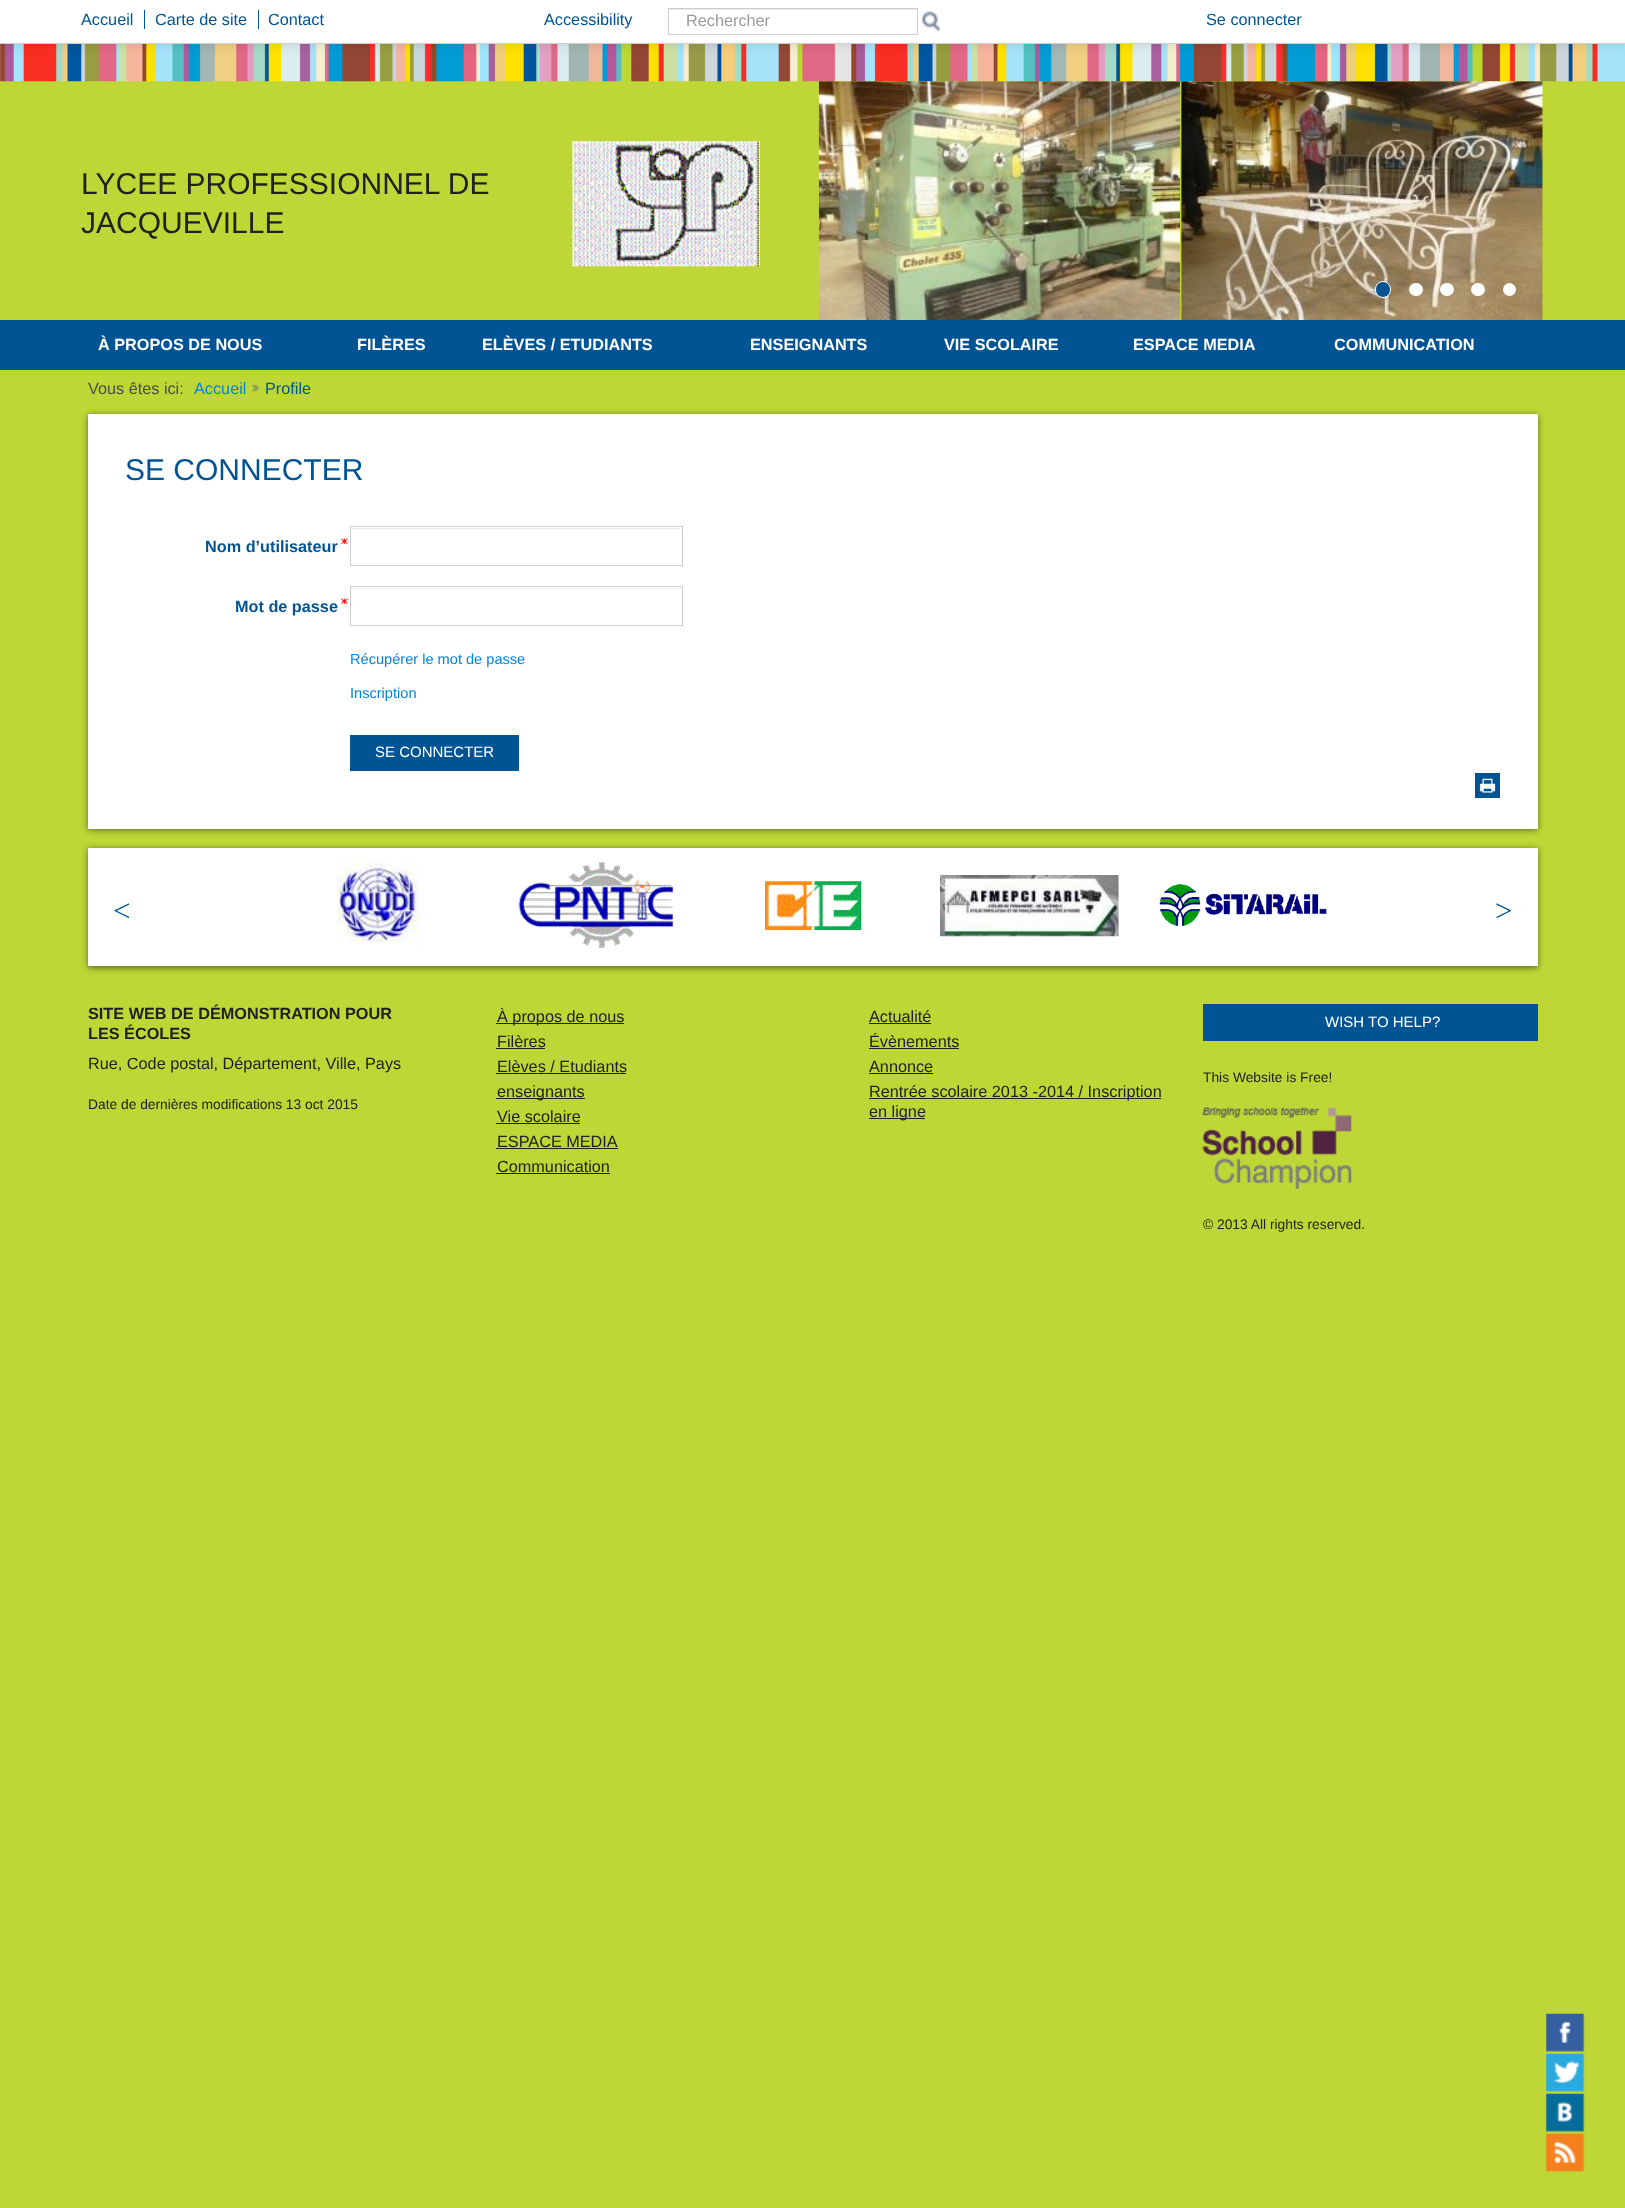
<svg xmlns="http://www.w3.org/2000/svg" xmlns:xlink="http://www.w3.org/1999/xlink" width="1625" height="2208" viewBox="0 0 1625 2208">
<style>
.cls-1{font:16.25px Liberation Sans;fill:#005494}
.cls-2{font:16.25px Liberation Sans;fill:#999999}
.cls-3{font:30px Liberation Sans;fill:#212121}
.cls-4{font:bold 16.25px Liberation Sans;fill:#ffffff}
.cls-5{font:16.25px Liberation Sans;fill:#4b4b4b}
.cls-6{font:16.25px Liberation Sans;fill:#0184df}
.cls-7{font:30px Liberation Sans;fill:#005494}
.cls-8{font:bold 16.25px Liberation Sans;fill:#005494}
.cls-9{font:14.6px Liberation Sans;fill:#0184df}
.cls-10{font:15px Liberation Sans;fill:#ffffff}
.cls-11{font:31px Liberation Serif;fill:#005494}
.cls-12{font:bold 16.25px Liberation Sans;fill:#212121}
.cls-13{font:16.25px Liberation Sans;fill:#212121}
.cls-14{font:13.8px Liberation Sans;fill:#212121}
</style>
<rect width="100%" height="100%" fill="#bed736"/>
<image xlink:href="image0.png" x="0" y="44" width="1625" height="38"/>
<rect fill="#000000" fill-opacity="0.1" filter="blur(6px)" x="0" y="1" width="1625" height="44"/>
<rect fill="#ffffff" x="0" y="0" width="1625" height="43"/>
<rect fill="#cdcdcd" x="0" y="43" width="1625" height="1"/>
<rect fill="#005494" x="144" y="10" width="1" height="19"/>
<rect fill="#005494" x="258" y="10" width="1" height="19"/>
<rect fill="#ececec" x="669" y="9" width="247" height="1"/>
<rect fill="none" stroke="#cccccc" x="668.5" y="8.5" width="249" height="26"/>
<image xlink:href="image1.png" x="921" y="11" width="20" height="21"/>
<image xlink:href="image2.png" x="572" y="141" width="188" height="126"/>
<image xlink:href="image3.png" x="818" y="81" width="362" height="239"/>
<image xlink:href="image4.png" x="1181" y="81" width="362" height="239"/>
<rect fill="#005494" stroke="#ffffff" x="1375.5" y="281.5" width="15" height="16" rx="7.5"/>
<rect fill="#ffffff" x="1409" y="283" width="14" height="13" rx="6.5"/>
<rect fill="#ffffff" x="1440" y="283" width="14" height="13" rx="6.5"/>
<rect fill="#ffffff" x="1471" y="283" width="14" height="13" rx="6.5"/>
<circle fill="#ffffff" cx="1509.5" cy="289.5" r="6.5"/>
<rect fill="#005494" x="0" y="320" width="1625" height="50"/>
<image xlink:href="image5.png" x="252" y="385" width="7" height="7"/>
<rect fill="#000000" fill-opacity="0.5" filter="blur(3px)" x="88" y="415" width="1450" height="415"/>
<rect fill="#ffffff" x="88" y="414" width="1450" height="415"/>
<image xlink:href="image6.png" x="341" y="538" width="7" height="6"/>
<rect fill="#ececec" x="351" y="528" width="330" height="1"/>
<rect fill="none" stroke="#cccccc" x="350.5" y="526.5" width="332" height="39"/>
<image xlink:href="image6.png" x="341" y="598" width="7" height="6"/>
<rect fill="#ececec" x="351" y="588" width="330" height="1"/>
<rect fill="none" stroke="#cccccc" x="350.5" y="586.5" width="332" height="39"/>
<rect fill="#005494" x="350" y="735" width="169" height="36"/>
<rect fill="#005494" x="1475" y="773" width="25" height="25"/>
<image xlink:href="image7.png" x="1479" y="778" width="17" height="15"/>
<rect fill="#000000" fill-opacity="0.5" filter="blur(3px)" x="88" y="849" width="1450" height="119"/>
<rect fill="#ffffff" x="88" y="848" width="1450" height="118"/>
<image xlink:href="image8.png" x="337" y="862" width="87" height="83"/>
<image xlink:href="image9.png" x="518" y="862" width="156" height="86"/>
<image xlink:href="image10.png" x="765" y="881" width="97" height="49"/>
<image xlink:href="image11.png" x="940" y="875" width="179" height="62"/>
<image xlink:href="image12.png" x="1159" y="884" width="168" height="43"/>
<rect fill="#212121" x="496" y="1023" width="128" height="1"/>
<rect fill="#212121" x="496" y="1048" width="49" height="1"/>
<rect fill="#212121" x="496" y="1073" width="130" height="1"/>
<rect fill="#212121" x="496" y="1098" width="89" height="1"/>
<rect fill="#212121" x="496" y="1123" width="84" height="1"/>
<rect fill="#212121" x="496" y="1148" width="122" height="1"/>
<rect fill="#212121" x="496" y="1173" width="114" height="1"/>
<rect fill="#212121" x="869" y="1023" width="62" height="1"/>
<rect fill="#212121" x="869" y="1048" width="90" height="1"/>
<rect fill="#212121" x="869" y="1073" width="64" height="1"/>
<rect fill="#212121" x="869" y="1098" width="292" height="1"/>
<rect fill="#212121" x="869" y="1118" width="56" height="1"/>
<rect fill="#005494" x="1203" y="1004" width="335" height="37"/>
<image xlink:href="image13.png" x="1202" y="1107" width="150" height="82"/>
<image xlink:href="image14.png" x="1546" y="2013" width="39" height="39"/>
<image xlink:href="image15.png" x="1546" y="2053" width="39" height="39"/>
<image xlink:href="image16.png" x="1546" y="2093" width="39" height="39"/>
<image xlink:href="image17.png" x="1546" y="2133" width="39" height="39"/>
<text class="cls-1" x="81" y="25">Accueil</text>
<text class="cls-1" x="155" y="25">Carte de site</text>
<text class="cls-1" x="268" y="25">Contact</text>
<text class="cls-1" x="544" y="25">Аccessibility</text>
<text class="cls-2" x="686" y="26">Rechercher</text>
<text class="cls-1" x="1206" y="25">Se connecter</text>
<text class="cls-3"><tspan x="81" y="194">LYCEE PROFESSIONNEL DE</tspan><tspan x="81" y="233">JACQUEVILLE</tspan></text>
<text class="cls-4" x="98" y="350">À PROPOS DE NOUS</text>
<text class="cls-4" x="357" y="350">FILÈRES</text>
<text class="cls-4" x="482" y="350">ELÈVES / ETUDIANTS</text>
<text class="cls-4" x="750" y="350">ENSEIGNANTS</text>
<text class="cls-4" x="944" y="350">VIE SCOLAIRE</text>
<text class="cls-4" x="1133" y="350">ESPACE MEDIA</text>
<text class="cls-4" x="1334" y="350">COMMUNICATION</text>
<text class="cls-5" x="88" y="394">Vous êtes ici:</text>
<text class="cls-6" x="194" y="394">Accueil</text>
<text class="cls-1" x="265" y="394">Profile</text>
<text class="cls-7" x="125" y="480">SE CONNECTER</text>
<text class="cls-8" x="205" y="552">Nom d’utilisateur</text>
<text class="cls-8" x="235" y="612">Mot de passe</text>
<text class="cls-9" x="350" y="664">Récupérer le mot de passe</text>
<text class="cls-9" x="350" y="698">Inscription</text>
<text class="cls-10" x="375" y="757">SE CONNECTER</text>
<text class="cls-11" x="113" y="921">&lt;</text>
<text class="cls-11" x="1495" y="921">&gt;</text>
<text class="cls-12"><tspan x="88" y="1019">SITE WEB DE DÉMONSTRATION POUR</tspan><tspan x="88" y="1039">LES ÉCOLES</tspan></text>
<text class="cls-13" x="88" y="1069">Rue, Code postal, Département, Ville, Pays</text>
<text class="cls-14" x="88" y="1109">Date de dernières modifications 13 oct 2015</text>
<text class="cls-13"><tspan x="497" y="1022">À propos de nous</tspan><tspan x="497" y="1047">Filères</tspan><tspan x="497" y="1072">Elèves / Etudiants</tspan><tspan x="497" y="1097">enseignants</tspan><tspan x="497" y="1122">Vie scolaire</tspan><tspan x="497" y="1147">ESPACE MEDIA</tspan><tspan x="497" y="1172">Communication</tspan></text>
<text class="cls-13"><tspan x="869" y="1022">Actualité</tspan><tspan x="869" y="1047">Évènements</tspan><tspan x="869" y="1072">Annonce</tspan><tspan x="869" y="1097">Rentrée scolaire 2013 -2014 / Inscription</tspan><tspan x="869" y="1117">en ligne</tspan></text>
<text class="cls-10" x="1325" y="1027">WISH TO HELP?</text>
<text class="cls-14" x="1203" y="1082">This Website is Free!</text>
<text class="cls-14" x="1203" y="1229">© 2013 All rights reserved.</text>
</svg>
